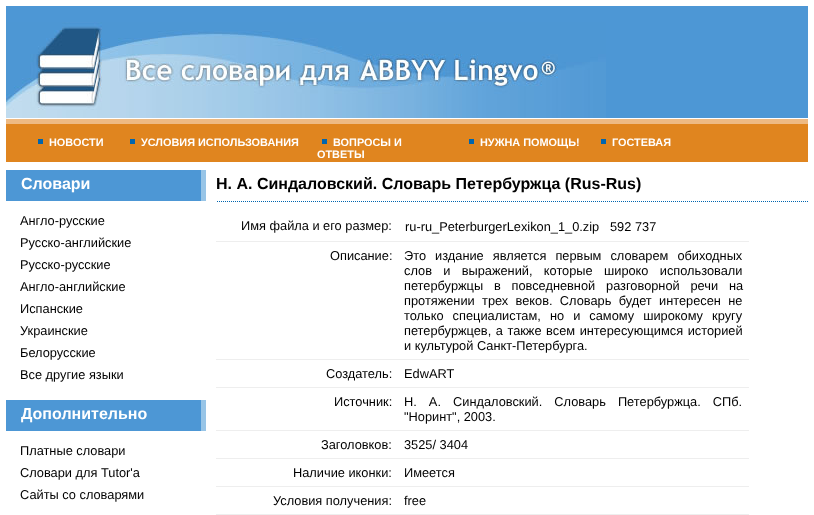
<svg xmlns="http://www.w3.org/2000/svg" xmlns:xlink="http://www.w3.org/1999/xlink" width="814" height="515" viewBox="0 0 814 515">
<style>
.cls-1{font:bold 10.9px Liberation Sans;fill:#ffffff}
.cls-2{font:bold 16px Liberation Sans;fill:#ffffff}
.cls-3{font:12.8px Liberation Sans;fill:#000000}
.cls-4{font:bold 16px Liberation Sans;fill:#000000}
</style>
<rect width="100%" height="100%" fill="#ffffff"/>
<rect fill="#4d97d5" x="6" y="6" width="802" height="112"/>
<image xlink:href="image0.png" x="6" y="22" width="600" height="96"/>
<rect fill="#e0851f" x="6" y="124" width="802" height="38"/>
<rect fill="#eeba83" x="6" y="119" width="802" height="5"/>
<rect fill="#0065ae" x="38" y="139" width="5" height="5"/>
<rect fill="#0065ae" x="130" y="139" width="5" height="5"/>
<rect fill="#0065ae" x="322" y="139" width="5" height="5"/>
<rect fill="#0065ae" x="469" y="139" width="5" height="5"/>
<rect fill="#0065ae" x="601" y="139" width="5" height="5"/>
<rect fill="#4d97d5" x="6" y="170" width="195" height="31"/>
<rect fill="#98c5e7" x="201" y="170" width="5" height="31"/>
<rect fill="#4d97d5" x="6" y="400" width="195" height="31"/>
<rect fill="#98c5e7" x="201" y="400" width="5" height="31"/>
<image xlink:href="image1.png" x="217" y="201" width="591" height="1"/>
<rect fill="#eeeeee" x="216" y="241" width="533" height="1"/>
<rect fill="#eeeeee" x="216" y="359" width="533" height="1"/>
<rect fill="#eeeeee" x="216" y="387" width="533" height="1"/>
<rect fill="#eeeeee" x="216" y="430" width="533" height="1"/>
<rect fill="#eeeeee" x="216" y="458" width="533" height="1"/>
<rect fill="#eeeeee" x="216" y="486" width="533" height="1"/>
<rect fill="#eeeeee" x="216" y="514" width="533" height="1"/>
<text class="cls-1" x="49" y="146">НОВОСТИ</text>
<text class="cls-1" x="141" y="146">УСЛОВИЯ ИСПОЛЬЗОВАНИЯ</text>
<text class="cls-1" x="333" y="146">ВОПРОСЫ И</text>
<text class="cls-1" x="317" y="158">ОТВЕТЫ</text>
<text class="cls-1" x="480" y="146">НУЖНА ПОМОЩЬ!</text>
<text class="cls-1" x="612" y="146">ГОСТЕВАЯ</text>
<text class="cls-2" x="21" y="189">Словари</text>
<text class="cls-3"><tspan x="20" y="225">Англо-русские</tspan><tspan x="20" y="247">Русско-английские</tspan><tspan x="20" y="269">Русско-русские</tspan><tspan x="20" y="291">Англо-английские</tspan><tspan x="20" y="313">Испанские</tspan><tspan x="20" y="335">Украинские</tspan><tspan x="20" y="357">Белорусские</tspan><tspan x="20" y="379">Все другие языки</tspan></text>
<text class="cls-2" x="21" y="419">Дополнительно</text>
<text class="cls-3"><tspan x="20" y="455">Платные словари</tspan><tspan x="20" y="477">Словари для Tutor'а</tspan><tspan x="20" y="499">Сайты со словарями</tspan></text>
<text class="cls-4" x="216" y="189">Н. А. Синдаловский. Словарь Петербуржца (Rus-Rus)</text>
<text class="cls-3" x="241" y="230">Имя файла и его размер:</text>
<text class="cls-3" x="405" y="231">ru-ru_PeterburgerLexikon_1_0.zip</text>
<text class="cls-3" x="610" y="231">592 737</text>
<text class="cls-3" x="330" y="260">Описание:</text>
<text class="cls-3"><tspan x="404" y="260" word-spacing="5.5">Это издание является первым словарем обиходных</tspan><tspan x="404" y="275" word-spacing="7.75">слов и выражений, которые широко использовали</tspan><tspan x="404" y="290" word-spacing="7.25">петербуржцы в повседневной разговорной речи на</tspan><tspan x="404" y="305" word-spacing="3.75">протяжении трех веков. Словарь будет интересен не</tspan><tspan x="404" y="320" word-spacing="5.5">только специалистам, но и самому широкому кругу</tspan><tspan x="404" y="335" word-spacing="1">петербуржцев, а также всем интересующимся историей</tspan><tspan x="404" y="350">и культурой Санкт-Петербурга.</tspan></text>
<text class="cls-3" x="326" y="378">Создатель:</text>
<text class="cls-3" x="404" y="378">EdwART</text>
<text class="cls-3" x="334" y="406">Источник:</text>
<text class="cls-3"><tspan x="404" y="406" word-spacing="8.5">Н. А. Синдаловский. Словарь Петербуржца. СПб.</tspan><tspan x="404" y="421">"Норинт", 2003.</tspan></text>
<text class="cls-3" x="321" y="449">Заголовков:</text>
<text class="cls-3" x="404" y="449">3525/ 3404</text>
<text class="cls-3" x="293" y="477">Наличие иконки:</text>
<text class="cls-3" x="404" y="477">Имеется</text>
<text class="cls-3" x="273" y="505">Условия получения:</text>
<text class="cls-3" x="404" y="505">free</text>
</svg>
